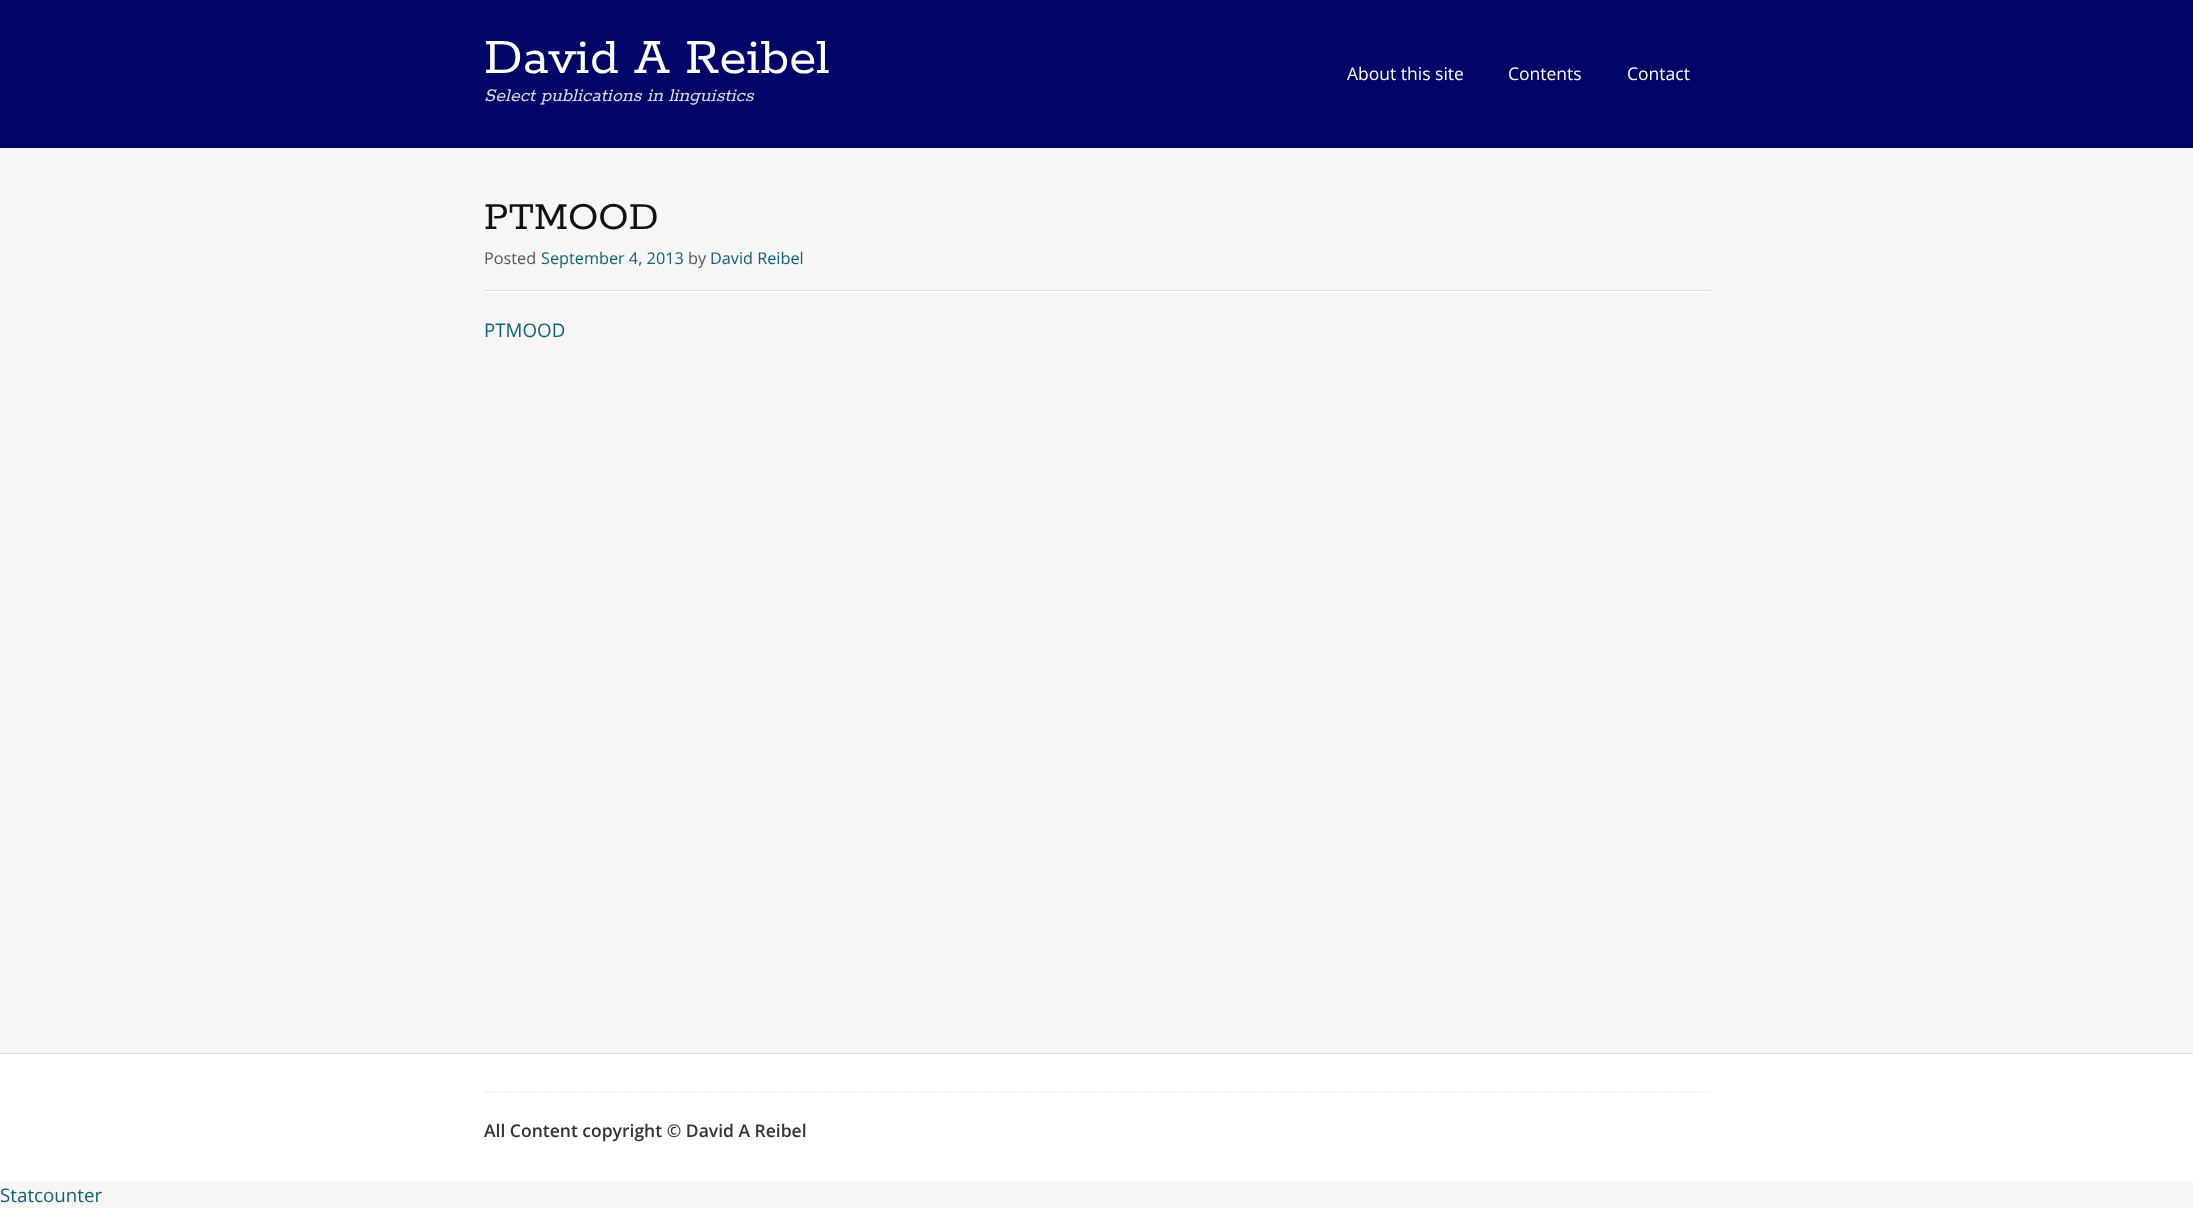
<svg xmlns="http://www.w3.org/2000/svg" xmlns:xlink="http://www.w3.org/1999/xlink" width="2193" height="1208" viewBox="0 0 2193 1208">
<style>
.cls-1{font:55px Rokkitt;fill:#ffffff}
.cls-2{font:italic 20px Rokkitt;fill:#dddddd}
.cls-3{font:17.5px Open Sans;fill:#ffffff}
.cls-4{font:42.5px Rokkitt;fill:#111111}
.cls-5{font:16.25px Open Sans;fill:#555555}
.cls-6{font:16.25px Open Sans;fill:#106177}
.cls-7{font:18.75px Open Sans;fill:#106177}
.cls-8{font:600 17.5px Open Sans;fill:#333333}
</style>
<rect width="100%" height="100%" fill="#f6f6f6"/>
<rect fill="#020568" x="0" y="0" width="2193" height="148"/>
<rect fill="#ffffff" x="485" y="291" width="1225" height="2"/>
<rect fill="#dddddd" x="485" y="290" width="1225" height="1"/>
<rect fill="#ffffff" x="0" y="1054" width="2193" height="127"/>
<rect fill="#dddddd" x="0" y="1053" width="2193" height="1"/>
<path fill="none" stroke="#dddddd" stroke-width="1.2" stroke-dasharray="1.25 1.25" d="M485 1092H1710"/>
<text class="cls-1" x="484" y="73">David A Reibel</text>
<text class="cls-2" x="484" y="101">Select publications in linguistics</text>
<text class="cls-3" x="1347" y="80">About this site</text>
<text class="cls-3" x="1508" y="80">Contents</text>
<text class="cls-3" x="1627" y="80">Contact</text>
<text class="cls-4" x="484" y="229">PTMOOD</text>
<text class="cls-5" x="484" y="264">Posted</text>
<text class="cls-6" x="541" y="264">September 4, 2013</text>
<text class="cls-5" x="688" y="264">by</text>
<text class="cls-6" x="710" y="264">David Reibel</text>
<text class="cls-7" x="484" y="337">PTMOOD</text>
<text class="cls-8" x="484" y="1137">All Content copyright © David A Reibel</text>
<text class="cls-7" x="0" y="1202">Statcounter</text>
</svg>
